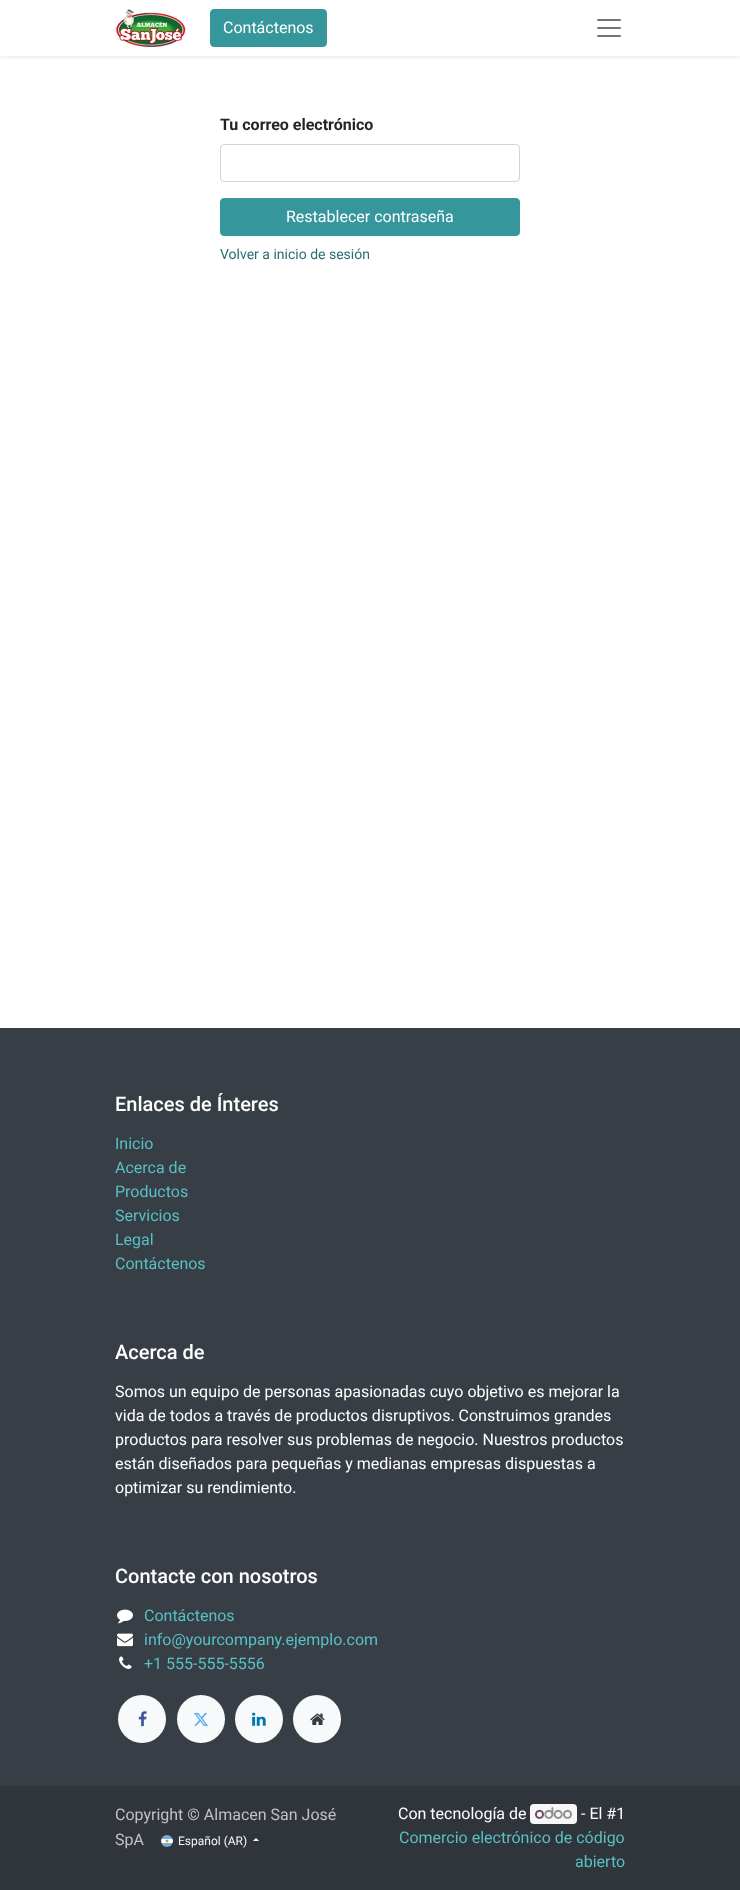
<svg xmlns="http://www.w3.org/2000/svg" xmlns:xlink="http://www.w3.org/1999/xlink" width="740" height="1890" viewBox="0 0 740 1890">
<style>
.cls-1{font:16px Roboto;fill:#ffffff}
.cls-2{font:bold 16px Roboto;fill:#212529}
.cls-3{font:14px Roboto;fill:#276e72}
.cls-4{font:500 20px Roboto;fill:#ffffff}
.cls-5{font:16px Roboto;fill:#57c1c6}
.cls-6{font:16px Roboto;fill:#c1c2c4}
.cls-7{font:12px Roboto;fill:#f6f6f6}
</style>
<defs>
<clipPath id="clip1"><rect x="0" y="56" width="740" height="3"/></clipPath>
</defs>
<rect width="100%" height="100%" fill="#ffffff"/>
<g clip-path="url(#clip1)">
<rect fill="#000000" fill-opacity="0.07" filter="blur(2px)" x="0" y="2" width="740" height="56"/>
</g>
<image xlink:href="image0.png" x="115" y="9" width="71" height="39"/>
<rect fill="#35979c" stroke="#35979c" x="210.5" y="9.5" width="116" height="37" rx="3.5"/>
<image xlink:href="image1.png" x="597" y="19" width="24" height="18"/>
<rect fill="none" stroke="#ced4da" x="220.5" y="144.5" width="299" height="37" rx="3.5"/>
<rect fill="#35979c" stroke="#35979c" x="220.5" y="198.5" width="299" height="37" rx="3.5"/>
<rect fill="#383e45" x="0" y="1028" width="740" height="758"/>
<image xlink:href="image2.png" x="117" y="1609" width="16" height="15"/>
<image xlink:href="image3.png" x="117" y="1633" width="16" height="14"/>
<image xlink:href="image4.png" x="119" y="1656" width="13" height="13"/>
<circle fill="#f8f9fa" cx="142" cy="1719" r="24"/>
<image xlink:href="image5.png" x="138" y="1711" width="9" height="16"/>
<circle fill="#f8f9fa" cx="201" cy="1719" r="24"/>
<image xlink:href="image6.png" x="194" y="1712" width="14" height="14"/>
<circle fill="#f8f9fa" cx="259" cy="1719" r="24"/>
<image xlink:href="image7.png" x="252" y="1712" width="14" height="14"/>
<circle fill="#f8f9fa" cx="317" cy="1719" r="24"/>
<image xlink:href="image8.png" x="310" y="1713" width="15" height="12"/>
<rect fill="#30353b" x="0" y="1786" width="740" height="104"/>
<image xlink:href="image9.png" x="161" y="1835" width="12" height="12"/>
<path fill="#f6f6f6" d="M259 1841H253L256 1838Z"/>
<rect fill="#f7f7f7" x="530" y="1804" width="47" height="20" rx="4"/>
<image xlink:href="image10.png" x="535" y="1807" width="37" height="12"/>
<text class="cls-1" x="223" y="33">Contáctenos</text>
<text class="cls-2" x="220" y="130">Tu correo electrónico</text>
<text class="cls-1" x="286" y="222">Restablecer contraseña</text>
<text class="cls-3" x="220" y="259">Volver a inicio de sesión</text>
<text class="cls-4" x="115" y="1111">Enlaces de Ínteres</text>
<text class="cls-5"><tspan x="115" y="1149">Inicio</tspan><tspan x="115" y="1173">Acerca de</tspan><tspan x="115" y="1197">Productos</tspan><tspan x="115" y="1221">Servicios</tspan><tspan x="115" y="1245">Legal</tspan><tspan x="115" y="1269">Contáctenos</tspan></text>
<text class="cls-4" x="115" y="1359">Acerca de</text>
<text class="cls-1"><tspan x="115" y="1397">Somos un equipo de personas apasionadas cuyo objetivo es mejorar la</tspan><tspan x="115" y="1421">vida de todos a través de productos disruptivos. Construimos grandes</tspan><tspan x="115" y="1445">productos para resolver sus problemas de negocio. Nuestros productos</tspan><tspan x="115" y="1469">están diseñados para pequeñas y medianas empresas dispuestas a</tspan><tspan x="115" y="1493">optimizar su rendimiento.</tspan></text>
<text class="cls-4" x="115" y="1583">Contacte con nosotros</text>
<text class="cls-5"><tspan x="144" y="1621">Contáctenos</tspan><tspan x="144" y="1645">info@yourcompany.ejemplo.com</tspan><tspan x="144" y="1669">+1 555-555-5556</tspan></text>
<text class="cls-6"><tspan x="115" y="1820">Copyright © Almacen San José</tspan><tspan x="115" y="1845">SpA</tspan></text>
<text class="cls-7" x="178" y="1845">Español (AR)</text>
<text class="cls-1" x="398" y="1819">Con tecnología de</text>
<text class="cls-1" x="581" y="1819">- El #1</text>
<text class="cls-5" x="399" y="1843">Comercio electrónico de código</text>
<text class="cls-5" x="575" y="1867">abierto</text>
</svg>
